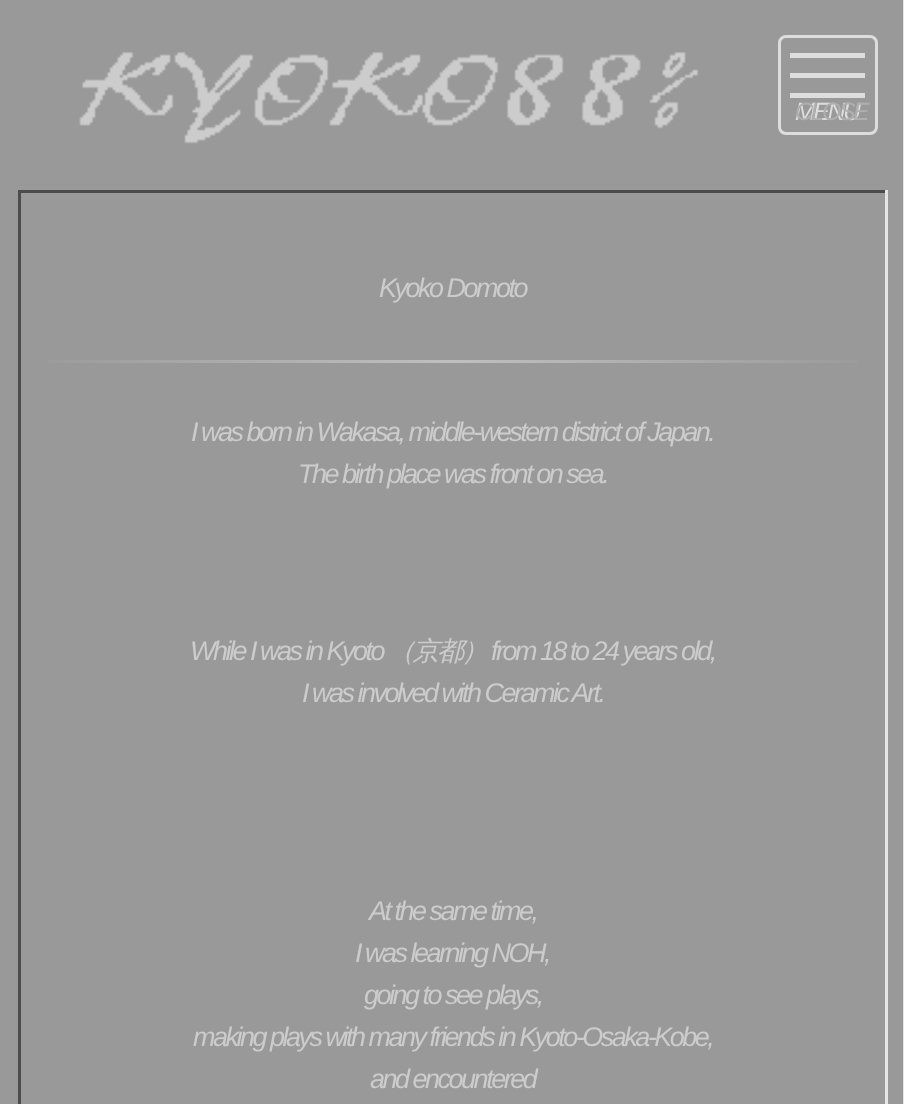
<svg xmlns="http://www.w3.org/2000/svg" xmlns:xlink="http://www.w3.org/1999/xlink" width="904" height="1104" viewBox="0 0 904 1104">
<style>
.cls-1{font:italic 25px Liberation Sans;letter-spacing:-2.5px;fill:#dddddd}
.cls-2{font:italic 25px Liberation Sans;letter-spacing:-2.5px;fill:#afafaf}
.cls-3{font:italic 27px Liberation Sans;letter-spacing:-2.5px;fill:#cccccc}
.cls-4{font:italic 500 27px WenQuanYi Zen Hei;letter-spacing:-2.5px;fill:#cccccc}
</style>
<defs>
<linearGradient id="g1" gradientUnits="userSpaceOnUse" x1="20" y1="361" x2="885" y2="361"><stop offset="0" stop-color="#cccccc" stop-opacity="0"/><stop offset="0.5" stop-color="#cccccc" stop-opacity="0.75"/><stop offset="1" stop-color="#cccccc" stop-opacity="0"/></linearGradient>
</defs>
<rect width="100%" height="100%" fill="#999999"/>
<image xlink:href="image0.png" x="79" y="52" width="620" height="92"/>
<rect fill="none" stroke="#dddddd" stroke-width="3" x="779.5" y="36.5" width="97" height="97" rx="6.5"/>
<rect fill="#dddddd" x="790" y="53" width="75" height="5"/>
<rect fill="#dddddd" x="790" y="73" width="75" height="5"/>
<rect fill="#dddddd" x="790" y="93" width="75" height="5"/>
<rect fill="#e5e5e5" x="903" y="0" width="1" height="1104"/>
<rect fill="#4c4c4c" x="18" y="190" width="870" height="3"/>
<rect fill="#e5e5e5" x="885" y="190" width="3" height="914"/>
<rect fill="#4c4c4c" x="18" y="190" width="3" height="914"/>
<rect fill="url(#g1)" x="47" y="360" width="811" height="3"/>
<text class="cls-1" x="795" y="120">MENU</text>
<text class="cls-2" x="795" y="120">CLOSE</text>
<text class="cls-3" x="379" y="297">Kyoko Domoto</text>
<text class="cls-3" x="191" y="441">I was born in Wakasa, middle-western district of Japan.</text>
<text class="cls-3" x="298" y="483">The birth place was front on sea.</text>
<text class="cls-3" x="190" y="660">While I was in Kyoto</text>
<text class="cls-4" x="388" y="660">（京都）</text>
<text class="cls-3" x="491" y="660">from 18 to 24 years old,</text>
<text class="cls-3" x="302" y="702">I was involved with Ceramic Art.</text>
<text class="cls-3" x="369" y="920">At the same time,</text>
<text class="cls-3" x="355" y="962">I was learning NOH,</text>
<text class="cls-3" x="364" y="1004">going to see plays,</text>
<text class="cls-3" x="193" y="1046">making plays with many friends in Kyoto-Osaka-Kobe,</text>
<text class="cls-3" x="370" y="1088">and encountered</text>
</svg>
